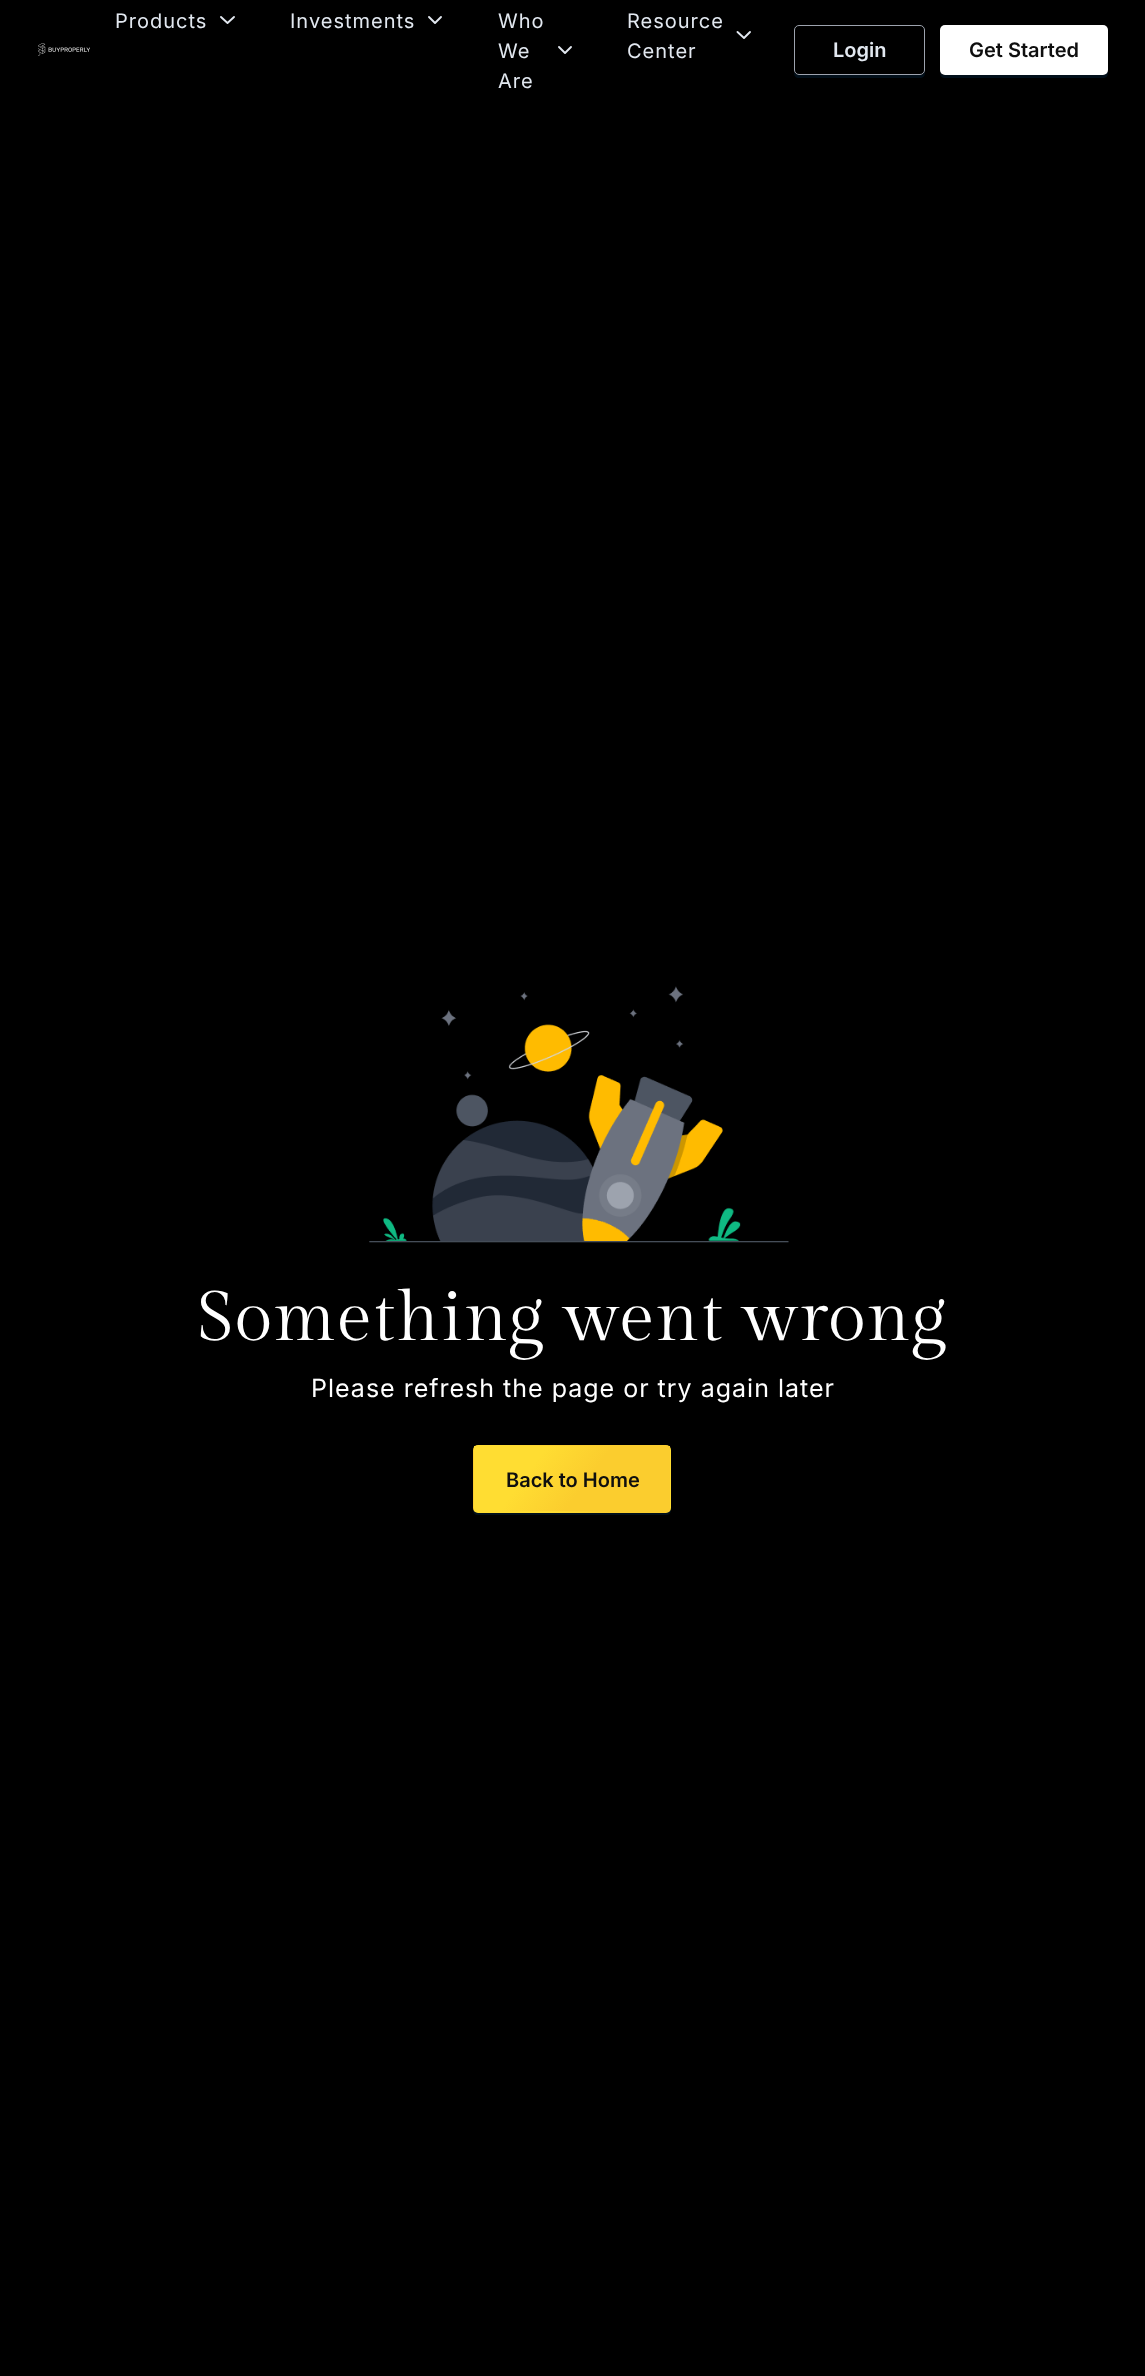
<svg xmlns="http://www.w3.org/2000/svg" xmlns:xlink="http://www.w3.org/1999/xlink" width="1145" height="2376" viewBox="0 0 1145 2376">
<style>
.cls-1{font:20px Inter;letter-spacing:1px;fill:#e2e8f0}
.cls-2{font:600 20px Inter;fill:#e2e8f0}
.cls-3{font:600 20px Inter;fill:#0f0f0f}
.cls-4{font:70px Gilda Display;letter-spacing:1px;fill:#ffffff}
.cls-5{font:25px Inter;letter-spacing:1px;fill:#ffffff}
</style>
<defs>
<clipPath id="clip1"><rect x="473" y="1445" width="198" height="68" rx="5"/></clipPath>
<linearGradient id="g1" gradientUnits="userSpaceOnUse" x1="651" y1="1472" x2="493" y2="1355"><stop offset="0.43" stop-color="#fbcd2e"/><stop offset="0.7" stop-color="#ffdd32"/></linearGradient>
<linearGradient id="g2" gradientUnits="userSpaceOnUse" x1="454" y1="1537" x2="297" y2="1420"><stop offset="0.43" stop-color="#fbcd2e"/><stop offset="0.7" stop-color="#ffdd32"/></linearGradient>
<linearGradient id="g3" gradientUnits="userSpaceOnUse" x1="651" y1="1537" x2="493" y2="1420"><stop offset="0.43" stop-color="#fbcd2e"/><stop offset="0.7" stop-color="#ffdd32"/></linearGradient>
<linearGradient id="g4" gradientUnits="userSpaceOnUse" x1="847" y1="1537" x2="689" y2="1420"><stop offset="0.43" stop-color="#fbcd2e"/><stop offset="0.7" stop-color="#ffdd32"/></linearGradient>
<linearGradient id="g5" gradientUnits="userSpaceOnUse" x1="651" y1="1602" x2="493" y2="1485"><stop offset="0.43" stop-color="#fbcd2e"/><stop offset="0.7" stop-color="#ffdd32"/></linearGradient>
</defs>
<rect width="100%" height="100%" fill="#000000"/>
<image xlink:href="image0.png" x="38" y="43" width="52" height="13"/>
<path fill="none" stroke="#e2e8f0" stroke-width="1.9" stroke-linecap="round" stroke-linejoin="round" d="M221 17L227.5 23L234 17"/>
<path fill="none" stroke="#e2e8f0" stroke-width="1.9" stroke-linecap="round" stroke-linejoin="round" d="M429 17L435 23L441 17"/>
<path fill="none" stroke="#e2e8f0" stroke-width="1.9" stroke-linecap="round" stroke-linejoin="round" d="M559 47L565 53L571 47"/>
<path fill="none" stroke="#e2e8f0" stroke-width="1.9" stroke-linecap="round" stroke-linejoin="round" d="M737.5 32L744 38L750 32"/>
<path fill="#010f1a" d="M794 72V73C794 76 796 78 799 78H920C923 78 925 76 925 73V70C925 73 923 75 920 75H799C797 75 795 74 794 72Z"/>
<rect fill="#000000" stroke="#9da3ae" x="794.5" y="25.5" width="130" height="49" rx="4.5"/>
<path fill="#010f1a" d="M940 70V73C940 76 942 78 945 78H1103C1106 78 1108 76 1108 73V33V31V70C1108 73 1105 75 1102 75H945C942 75 940 73 940 70Z"/>
<rect fill="#ffffff" x="940" y="25" width="168" height="50" rx="5"/>
<image xlink:href="image1.png" x="369" y="986" width="420" height="257"/>
<path fill="#010f1a" d="M473 1510C473 1513 475 1515 478 1515H666C669 1515 671 1513 671 1510V1509C670 1511 668 1512 666 1512H478C476 1512 474 1511 473 1510Z"/>
<g clip-path="url(#clip1)">
<rect fill="url(#g1)" x="474" y="1445" width="196" height="1"/>
<rect fill="url(#g2)" x="473" y="1446" width="1" height="65"/>
</g>
<rect fill="url(#g3)" x="474" y="1446" width="196" height="65"/>
<g clip-path="url(#clip1)">
<rect fill="url(#g4)" x="670" y="1446" width="1" height="65"/>
<rect fill="url(#g5)" x="474" y="1511" width="196" height="2"/>
</g>
<text class="cls-1" x="115" y="28">Products</text>
<text class="cls-1" x="290" y="28">Investments</text>
<text class="cls-1"><tspan x="498" y="28">Who</tspan><tspan x="498" y="58">We</tspan><tspan x="498" y="88">Are</tspan></text>
<text class="cls-1"><tspan x="627" y="28">Resource</tspan><tspan x="627" y="58">Center</tspan></text>
<text class="cls-2" x="833" y="57">Login</text>
<text class="cls-3" x="969" y="57">Get Started</text>
<text class="cls-4" x="197" y="1340">Something went wrong</text>
<text class="cls-5" x="311" y="1397">Please refresh the page or try again later</text>
<text class="cls-3" x="506" y="1487">Back to Home</text>
</svg>
